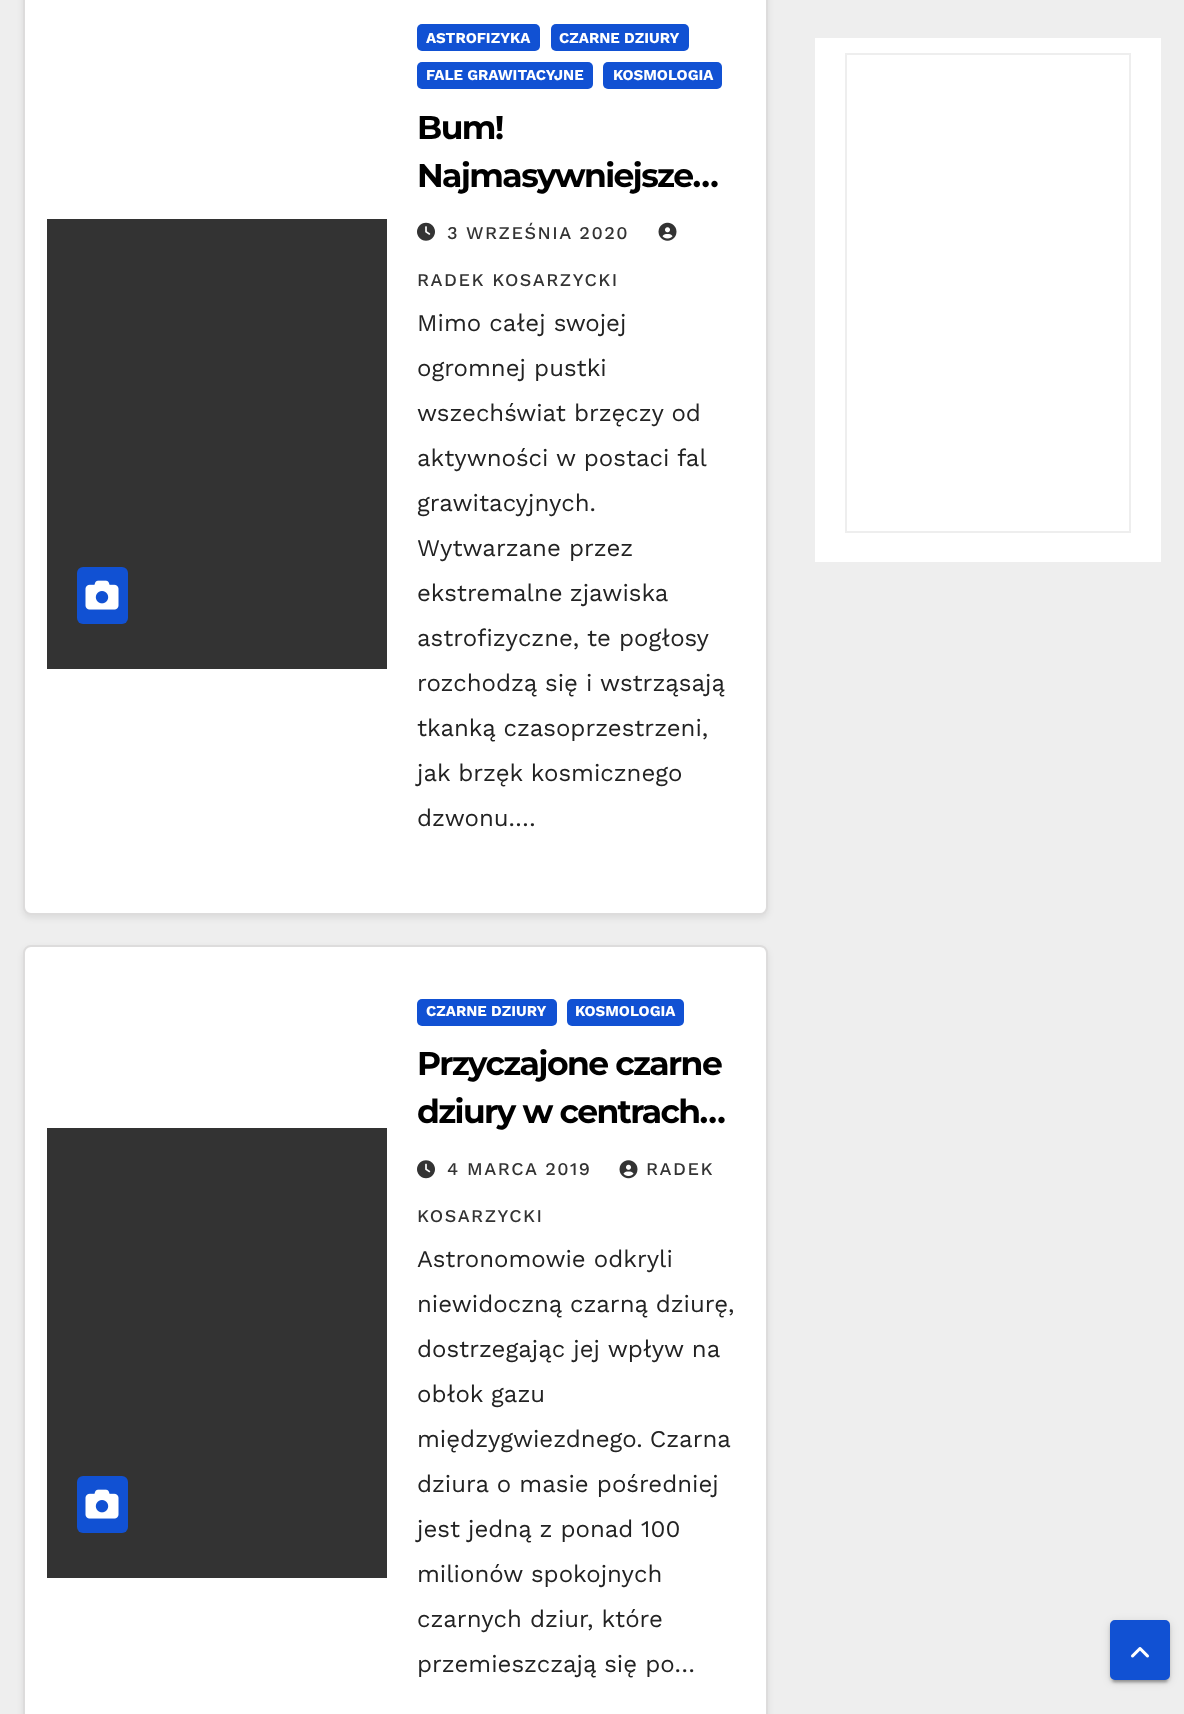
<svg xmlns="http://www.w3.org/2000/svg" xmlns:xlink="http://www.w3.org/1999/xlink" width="1184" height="1714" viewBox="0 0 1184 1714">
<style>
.cls-1{font:bold 15px Work Sans;fill:#ffffff}
.cls-2{font:bold 33px Montserrat;letter-spacing:-1.6px;fill:#000000}
.cls-3{font:500 18px Work Sans;letter-spacing:1.5px;fill:#333333}
.cls-4{font:24px Work Sans;fill:#222222}
</style>
<rect width="100%" height="100%" fill="#eeeeee"/>
<rect fill="#000000" fill-opacity="0.08" filter="blur(3px)" x="23" y="-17" width="745" height="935" rx="8"/>
<rect fill="#ffffff" stroke="#dddcdc" stroke-width="2" x="24" y="-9" width="743" height="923" rx="7"/>
<rect fill="#333333" x="47" y="219" width="340" height="450"/>
<rect fill="#1151d3" x="77" y="567" width="51" height="57" rx="6"/>
<image xlink:href="image0.png" x="85" y="580" width="34" height="30"/>
<rect fill="#1151d3" x="417" y="24" width="123" height="27" rx="5"/>
<rect fill="#1151d3" x="551" y="24" width="138" height="27" rx="5"/>
<rect fill="#1151d3" x="417" y="62" width="176" height="27" rx="5"/>
<rect fill="#1151d3" x="603" y="62" width="119" height="27" rx="5"/>
<image xlink:href="image1.png" x="417" y="222" width="18" height="19"/>
<image xlink:href="image2.png" x="658" y="222" width="19" height="19"/>
<rect fill="#000000" fill-opacity="0.08" filter="blur(3px)" x="23" y="948" width="745" height="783" rx="8"/>
<rect fill="#ffffff" stroke="#dddcdc" stroke-width="2" x="24" y="946" width="743" height="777" rx="7"/>
<rect fill="#333333" x="47" y="1128" width="340" height="450"/>
<rect fill="#1151d3" x="77" y="1476" width="51" height="57" rx="6"/>
<image xlink:href="image0.png" x="85" y="1489" width="34" height="30"/>
<rect fill="#1151d3" x="417" y="999" width="140" height="27" rx="5"/>
<rect fill="#1151d3" x="567" y="999" width="117" height="27" rx="5"/>
<image xlink:href="image3.png" x="417" y="1160" width="18" height="19"/>
<image xlink:href="image4.png" x="619" y="1160" width="19" height="19"/>
<rect fill="#ffffff" x="815" y="38" width="346" height="524"/>
<rect fill="none" stroke="#eeeeee" stroke-width="2" x="846" y="54" width="284" height="478"/>
<rect fill="#000000" fill-opacity="0.12" filter="blur(4px)" x="1110" y="1622" width="60" height="60" rx="5"/>
<rect fill="#000000" fill-opacity="0.2" filter="blur(1px)" x="1113" y="1628" width="54" height="54" rx="1.5"/>
<rect fill="#000000" fill-opacity="0.14" filter="blur(1.5px)" x="1110" y="1623" width="60" height="60" rx="5"/>
<rect fill="#1151d3" stroke="#1151d3" stroke-width="3" x="1111.5" y="1621.5" width="57" height="57" rx="3.5"/>
<image xlink:href="image5.png" x="1131" y="1647" width="18" height="11"/>
<text class="cls-1" x="426" y="43">ASTROFIZYKA</text>
<text class="cls-1" x="559" y="43">CZARNE DZIURY</text>
<text class="cls-1" x="426" y="80">FALE GRAWITACYJNE</text>
<text class="cls-1" x="613" y="80">KOSMOLOGIA</text>
<text class="cls-2"><tspan x="417" y="139">Bum!</tspan><tspan x="417" y="187">Najmasywniejsze…</tspan></text>
<text class="cls-3" x="447" y="239">3 WRZEŚNIA 2020</text>
<text class="cls-3" x="417" y="286">RADEK KOSARZYCKI</text>
<text class="cls-4"><tspan x="417" y="331">Mimo całej swojej</tspan><tspan x="417" y="376">ogromnej pustki</tspan><tspan x="417" y="421">wszechświat brzęczy od</tspan><tspan x="417" y="466">aktywności w postaci fal</tspan><tspan x="417" y="511">grawitacyjnych.</tspan><tspan x="417" y="556">Wytwarzane przez</tspan><tspan x="417" y="601" word-spacing="-1">ekstremalne zjawiska</tspan><tspan x="417" y="646">astrofizyczne, te pogłosy</tspan><tspan x="417" y="691">rozchodzą się i wstrząsają</tspan><tspan x="417" y="736">tkanką czasoprzestrzeni,</tspan><tspan x="417" y="781">jak brzęk kosmicznego</tspan><tspan x="417" y="826">dzwonu.…</tspan></text>
<text class="cls-1" x="426" y="1016">CZARNE DZIURY</text>
<text class="cls-1" x="575" y="1016">KOSMOLOGIA</text>
<text class="cls-2"><tspan x="417" y="1075">Przyczajone czarne</tspan><tspan x="417" y="1123">dziury w centrach…</tspan></text>
<text class="cls-3" x="447" y="1175">4 MARCA 2019</text>
<text class="cls-3" x="646" y="1175">RADEK</text>
<text class="cls-3" x="417" y="1222">KOSARZYCKI</text>
<text class="cls-4"><tspan x="417" y="1267">Astronomowie odkryli</tspan><tspan x="417" y="1312">niewidoczną czarną dziurę,</tspan><tspan x="417" y="1357">dostrzegając jej wpływ na</tspan><tspan x="417" y="1402">obłok gazu</tspan><tspan x="417" y="1447" word-spacing="-1">międzygwiezdnego. Czarna</tspan><tspan x="417" y="1492">dziura o masie pośredniej</tspan><tspan x="417" y="1537">jest jedną z ponad 100</tspan><tspan x="417" y="1582">milionów spokojnych</tspan><tspan x="417" y="1627">czarnych dziur, które</tspan><tspan x="417" y="1672">przemieszczają się po…</tspan></text>
</svg>
